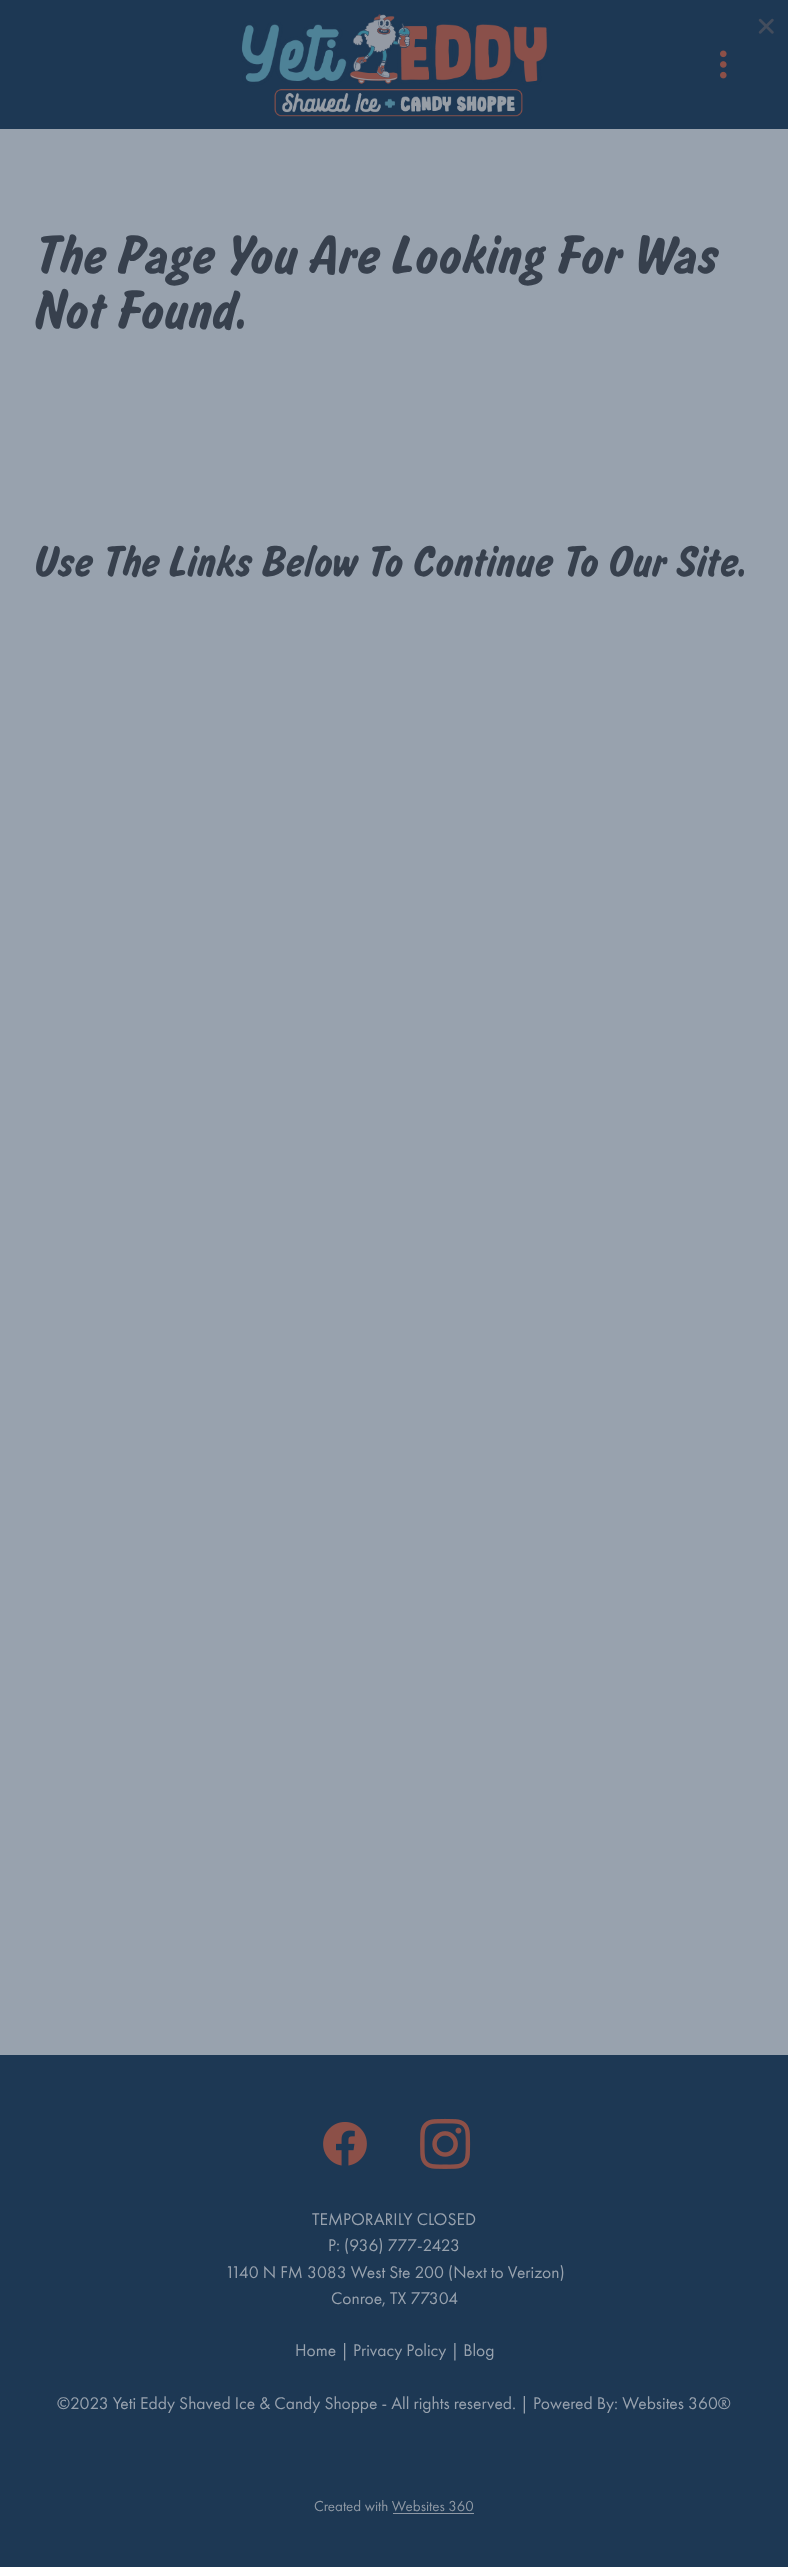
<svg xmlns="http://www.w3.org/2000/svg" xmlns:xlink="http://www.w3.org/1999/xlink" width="788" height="2567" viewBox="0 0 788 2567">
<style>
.cls-1{font:50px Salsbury;fill:#37404d}
.cls-2{font:40px Salsbury;fill:#37404d}
.cls-3{font:17.5px Futura PT;fill:#98a2ae}
.cls-4{font:15px Futura PT;fill:#8e98a4}
</style>
<rect width="100%" height="100%" fill="#98a2ae"/>
<rect fill="#1d3854" x="0" y="0" width="788" height="129"/>
<image xlink:href="image0.png" x="758" y="18" width="16" height="16"/>
<image xlink:href="image1.png" x="241" y="14" width="307" height="103"/>
<image xlink:href="image2.png" x="720" y="50" width="7" height="29"/>
<rect fill="#1d3854" x="0" y="2055" width="788" height="512"/>
<image xlink:href="image3.png" x="323" y="2122" width="44" height="44"/>
<image xlink:href="image4.png" x="420" y="2118" width="51" height="51"/>
<rect fill="#8e98a4" x="393" y="2513" width="81" height="1"/>
<text class="cls-1"><tspan x="32" y="273">The Page You Are Looking For Was</tspan><tspan x="32" y="328">Not Found.</tspan></text>
<text class="cls-2" x="32" y="576">Use The Links Below To Continue To Our Site.</text>
<text class="cls-3" x="312" y="2225">TEMPORARILY CLOSED</text>
<text class="cls-3" x="328" y="2251">P: (936) 777-2423</text>
<text class="cls-3" x="225" y="2278">1140 N FM 3083 West Ste 200 (Next to Verizon)</text>
<text class="cls-3" x="331" y="2304">Conroe, TX 77304</text>
<text class="cls-3" x="295" y="2356">Home | Privacy Policy | Blog</text>
<text class="cls-3" x="57" y="2409">©2023 Yeti Eddy Shaved Ice &amp; Candy Shoppe - All rights reserved. | Powered By: Websites 360®</text>
<text class="cls-4" x="314" y="2511">Created with Websites 360</text>
</svg>
